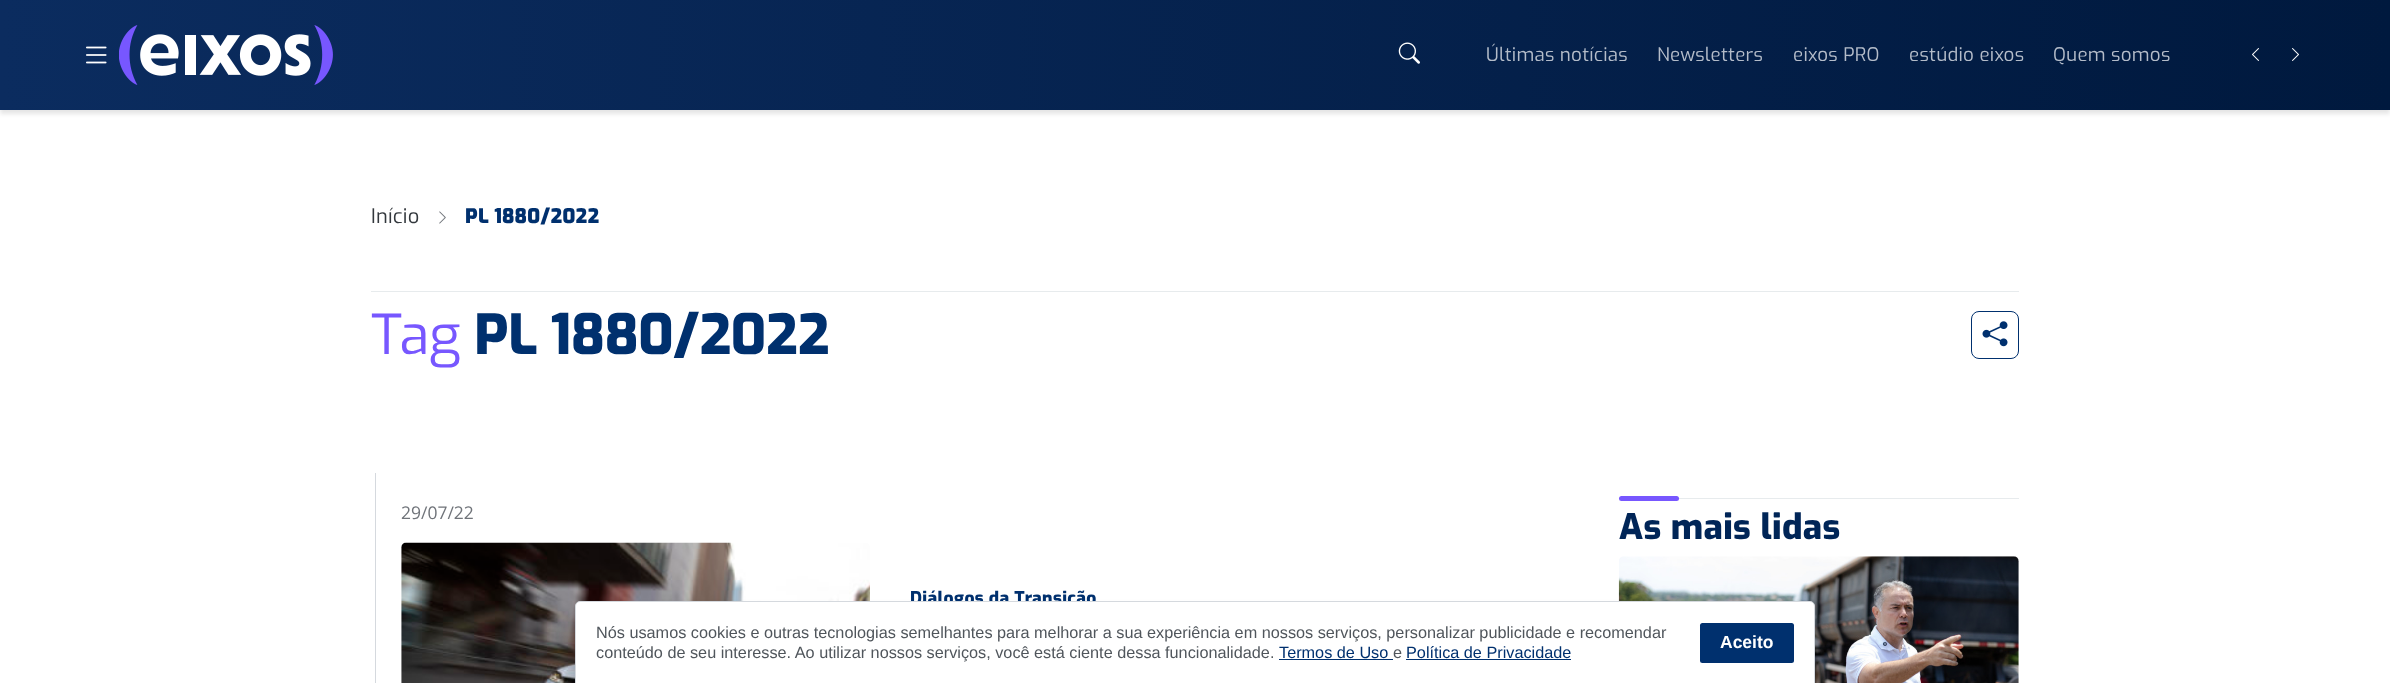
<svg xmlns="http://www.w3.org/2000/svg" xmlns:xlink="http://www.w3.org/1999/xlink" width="2390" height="683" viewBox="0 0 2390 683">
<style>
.cls-1{font:18.75px Exo;letter-spacing:0.25px;fill:#b4bcc9}
.cls-2{font:20px Exo;letter-spacing:0.25px;fill:#33383d}
.cls-3{font:900 20px Exo;letter-spacing:0.25px;fill:#00306e}
.cls-4{font:55px Exo;letter-spacing:-0.5px;fill:#7757ff}
.cls-5{font:800 55px Exo;letter-spacing:-0.5px;fill:#00306e}
.cls-6{font:17.5px Open Sans;fill:#70747a}
.cls-7{font:800 17.5px Exo;letter-spacing:0.35px;fill:#00306e}
.cls-8{font:800 35px Exo;letter-spacing:0.35px;fill:#002557}
.cls-9{font:16.25px Liberation Sans;fill:#50565c}
.cls-10{font:16.25px Liberation Sans;fill:#00306e}
.cls-11{font:bold 17.5px Liberation Sans;fill:#ffffff}
</style>
<defs>
<linearGradient id="g1" gradientUnits="userSpaceOnUse" x1="2390" y1="55" x2="0" y2="55"><stop offset="0" stop-color="#00193e"/><stop offset="1" stop-color="#0b2c5f"/></linearGradient>
</defs>
<rect width="100%" height="100%" fill="#ffffff"/>
<rect fill="#000000" fill-opacity="0.1" filter="blur(2px)" x="0" y="4" width="2390" height="110"/>
<rect fill="url(#g1)" x="0" y="0" width="2390" height="110"/>
<image xlink:href="image0.png" x="86" y="46" width="21" height="18"/>
<image xlink:href="image1.png" x="119" y="25" width="214" height="60"/>
<image xlink:href="image2.png" x="1398" y="42" width="22" height="22"/>
<image xlink:href="image3.png" x="2252" y="48" width="7" height="13"/>
<image xlink:href="image4.png" x="2292" y="48" width="7" height="13"/>
<image xlink:href="image5.png" x="439" y="211" width="7" height="13"/>
<rect fill="#e7ebed" x="371" y="291" width="1648" height="1"/>
<rect fill="none" stroke="#00306e" x="1971.5" y="311.5" width="47" height="47" rx="7.5"/>
<image xlink:href="image6.png" x="1982" y="321" width="26" height="26"/>
<rect fill="#d5d9de" x="375" y="473" width="1" height="210"/>
<image xlink:href="image7.png" x="401" y="542" width="469" height="141"/>
<rect fill="#e7ebed" x="1619" y="498" width="400" height="1"/>
<rect fill="#7757ff" x="1619" y="496" width="60" height="5" rx="2.5"/>
<image xlink:href="image8.png" x="1618" y="556" width="401" height="127"/>
<rect fill="#000000" fill-opacity="0.3" filter="blur(12.5px)" x="575" y="626" width="1240" height="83" rx="5"/>
<text class="cls-1" x="1486" y="61">Últimas notícias</text>
<text class="cls-1" x="1657" y="61">Newsletters</text>
<text class="cls-1" x="1793" y="61">eixos PRO</text>
<text class="cls-1" x="1909" y="61">estúdio eixos</text>
<text class="cls-1" x="2053" y="61">Quem somos</text>
<text class="cls-2" x="371" y="223">Início</text>
<text class="cls-3" x="465" y="223">PL 1880/2022</text>
<text class="cls-4" x="371" y="354">Tag</text>
<text class="cls-5" x="474" y="354">PL 1880/2022</text>
<text class="cls-6" x="401" y="519">29/07/22</text>
<text class="cls-7" x="910" y="604">Diálogos da Transição</text>
<text class="cls-8" x="1619" y="539">As mais lidas</text>
<path fill="#ffffff" stroke="#d5d9de" d="M580 601.5H1810C1812.5 601.5 1814.5 603.5 1814.5 606V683.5H575.5V606C575.5 603.5 577.5 601.5 580 601.5Z"/>
<text class="cls-9"><tspan x="596" y="638">Nós usamos cookies e outras tecnologias semelhantes para melhorar a sua experiência em nossos serviços, personalizar publicidade e recomendar</tspan><tspan x="596" y="658">conteúdo de seu interesse. Ao utilizar nossos serviços, você está ciente dessa funcionalidade.</tspan></text>
<text class="cls-10" x="1279" y="658">Termos de Uso</text>
<rect fill="#00306e" x="1279" y="659" width="114" height="1"/>
<text class="cls-9" x="1393" y="658">e</text>
<text class="cls-10" x="1406" y="658">Política de Privacidade</text>
<rect fill="#00306e" x="1406" y="659" width="165" height="1"/>
<rect fill="#00306e" x="1700" y="623" width="94" height="40" rx="2.5"/>
<text class="cls-11" x="1720" y="648">Aceito</text>
</svg>
